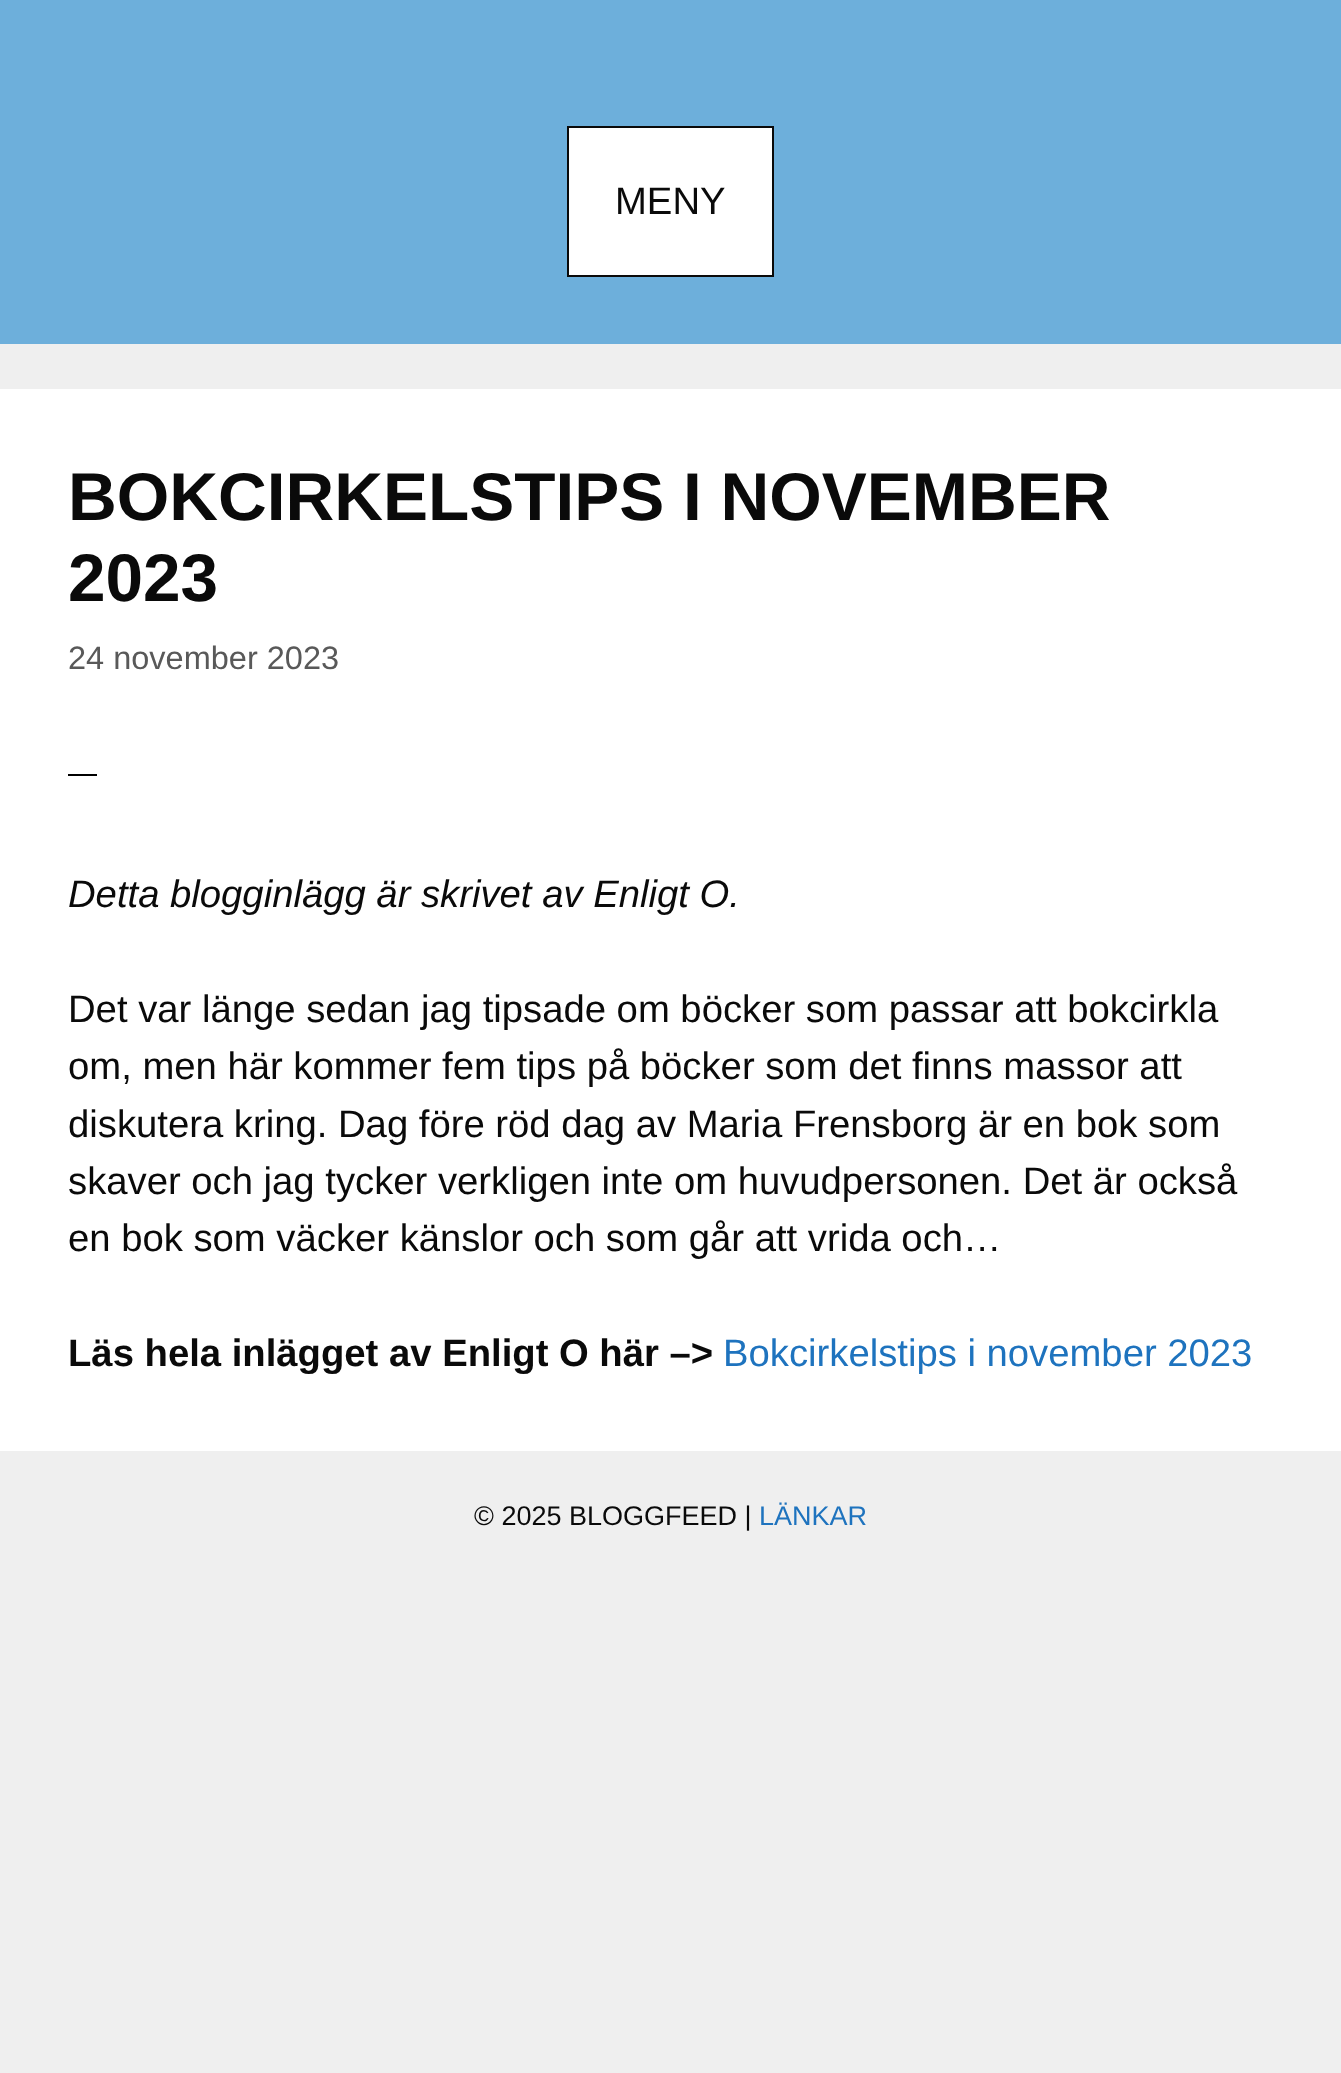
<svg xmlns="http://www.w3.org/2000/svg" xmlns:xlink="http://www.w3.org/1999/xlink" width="1341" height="2073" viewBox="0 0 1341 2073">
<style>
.cls-1{font:38.25px Arimo;fill:#0a0a0a}
.cls-2{font:bold 67.5px Arimo;fill:#0a0a0a}
.cls-3{font:32.5px Arimo;fill:#595959}
.cls-4{font:italic 38.25px Arimo;fill:#0a0a0a}
.cls-5{font:bold 38.25px Arimo;fill:#0a0a0a}
.cls-6{font:38.25px Arimo;fill:#1e73be}
.cls-7{font:27px Arimo;fill:#0a0a0a}
.cls-8{font:27px Arimo;fill:#1e73be}
</style>
<rect width="100%" height="100%" fill="#efefef"/>
<rect fill="#6dafdb" x="0" y="0" width="1341" height="344"/>
<rect fill="#ffffff" stroke="#0a0a0a" stroke-width="2" x="568" y="127" width="205" height="149"/>
<rect fill="#ffffff" x="0" y="389" width="1341" height="1062"/>
<rect fill="#000000" x="68" y="774" width="29" height="2"/>
<text class="cls-1" x="615" y="214">MENY</text>
<text class="cls-2"><tspan x="68" y="520">BOKCIRKELSTIPS I NOVEMBER</tspan><tspan x="68" y="601">2023</tspan></text>
<text class="cls-3" x="68" y="669">24 november 2023</text>
<text class="cls-4" x="68" y="907">Detta blogginlägg är skrivet av Enligt O.</text>
<text class="cls-1"><tspan x="68" y="1022">Det var länge sedan jag tipsade om böcker som passar att bokcirkla</tspan><tspan x="68" y="1079">om, men här kommer fem tips på böcker som det finns massor att</tspan><tspan x="68" y="1137">diskutera kring. Dag före röd dag av Maria Frensborg är en bok som</tspan><tspan x="68" y="1194">skaver och jag tycker verkligen inte om huvudpersonen. Det är också</tspan><tspan x="68" y="1251">en bok som väcker känslor och som går att vrida och…</tspan></text>
<text class="cls-5" x="68" y="1366">Läs hela inlägget av Enligt O här –&gt;</text>
<text class="cls-6" x="723" y="1366">Bokcirkelstips i november 2023</text>
<text class="cls-7" x="474" y="1525">© 2025 BLOGGFEED |</text>
<text class="cls-8" x="759" y="1525">LÄNKAR</text>
</svg>
